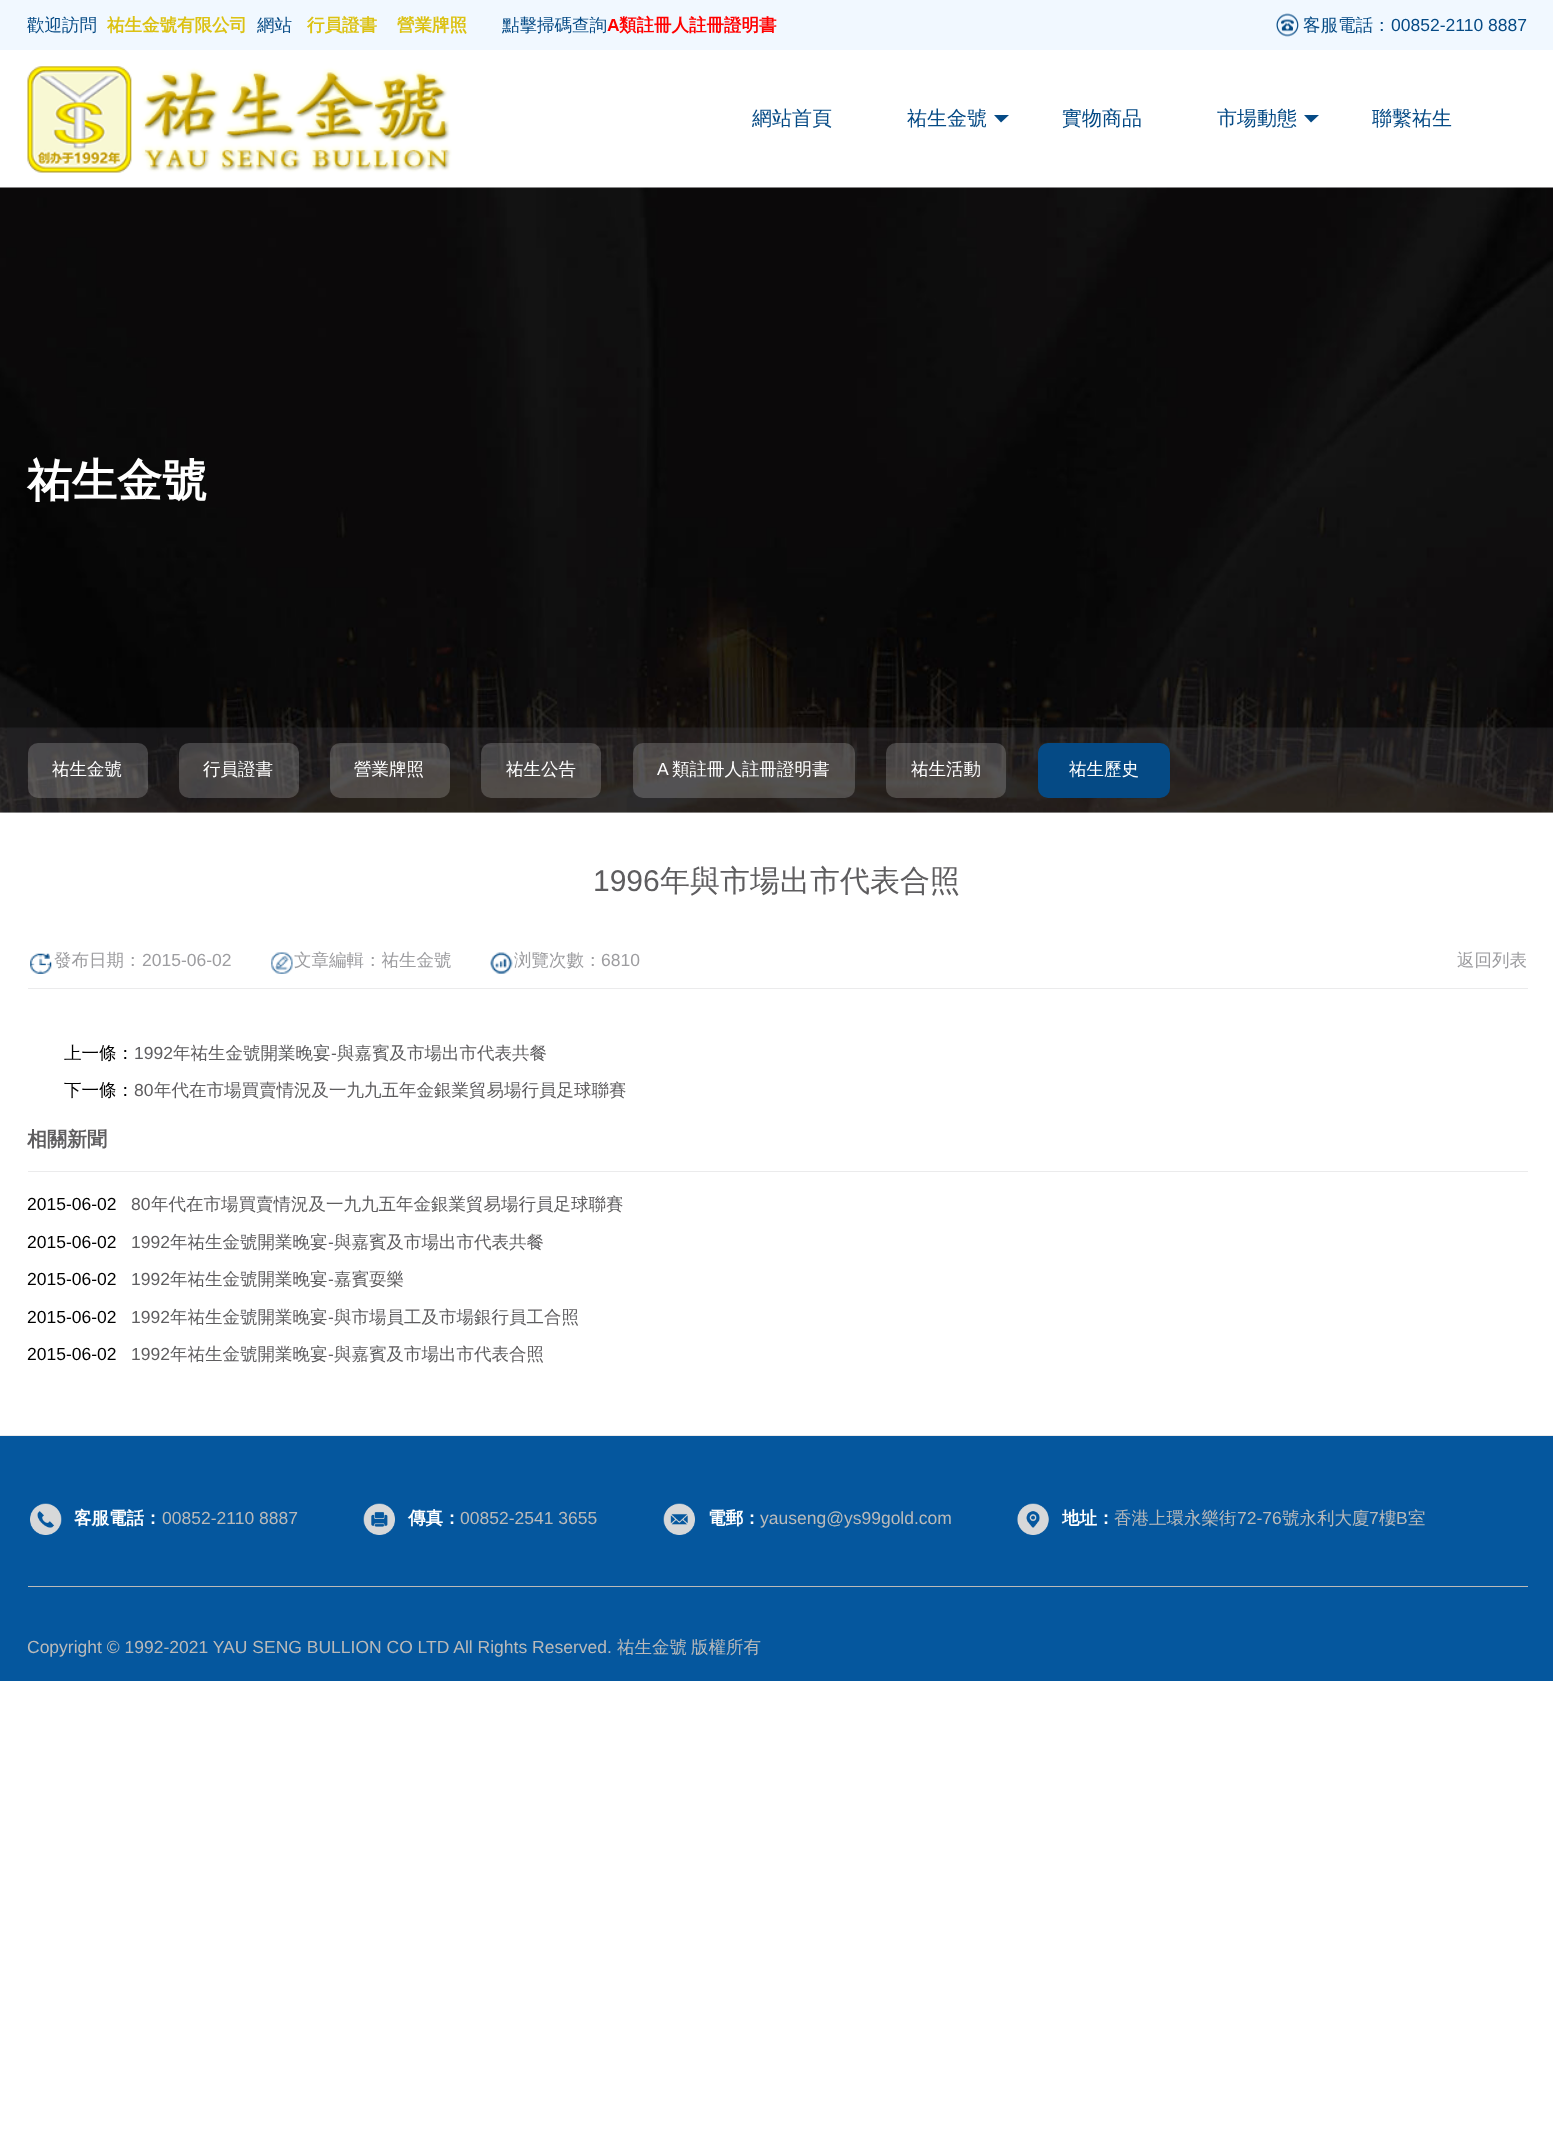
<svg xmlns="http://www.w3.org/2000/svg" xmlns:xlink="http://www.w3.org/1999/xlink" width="1553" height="2137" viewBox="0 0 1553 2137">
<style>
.cls-1{font:500 17.5px WenQuanYi Zen Hei;fill:#054a85}
.cls-2{font:bold 17.5px WenQuanYi Zen Hei;fill:#dcc214}
.cls-3{font:bold 17.5px Liberation Sans;fill:#ff0000}
.cls-4{font:bold 17.5px WenQuanYi Zen Hei;fill:#ff0000}
.cls-5{font:17.5px Liberation Sans;fill:#054a85}
.cls-6{font:500 20px WenQuanYi Zen Hei;fill:#054a85}
.cls-7{font:bold 45px WenQuanYi Zen Hei;fill:#ffffff}
.cls-8{font:500 17.5px WenQuanYi Zen Hei;fill:#ffffff}
.cls-9{font:17.5px Liberation Sans;fill:#ffffff}
.cls-10{font:30px Liberation Sans;fill:#5e5d5f}
.cls-11{font:500 30px WenQuanYi Zen Hei;fill:#5e5d5f}
.cls-12{font:500 17.5px WenQuanYi Zen Hei;fill:#9d9da0}
.cls-13{font:17.5px Liberation Sans;fill:#9d9da0}
.cls-14{font:500 17.5px WenQuanYi Zen Hei;fill:#000000}
.cls-15{font:17.5px Liberation Sans;fill:#5e5d5f}
.cls-16{font:500 17.5px WenQuanYi Zen Hei;fill:#5e5d5f}
.cls-17{font:bold 20px WenQuanYi Zen Hei;fill:#5e5d5f}
.cls-18{font:17.5px Liberation Sans;fill:#000000}
.cls-19{font:bold 17.5px WenQuanYi Zen Hei;fill:#ffffff}
.cls-20{font:17.5px Liberation Sans;fill:#bababa}
.cls-21{font:500 17.5px WenQuanYi Zen Hei;fill:#bababa}
</style>
<rect width="100%" height="100%" fill="#ffffff"/>
<rect fill="#f1f8ff" x="0" y="0" width="1553" height="50"/>
<image xlink:href="image0.png" x="1276" y="13" width="23" height="24"/>
<image xlink:href="image1.png" x="27" y="66" width="425" height="107"/>
<path fill="#054a85" d="M994 115H1009L1001 122.5Z"/>
<path fill="#054a85" d="M1304 115H1319L1311 122.5Z"/>
<image xlink:href="image2.png" x="0" y="187" width="1553" height="626"/>
<rect fill="#ebebec" x="0" y="1435" width="1553" height="1"/>
<image xlink:href="image3.png" x="0" y="727" width="1553" height="86"/>
<rect fill="#f4f4f4" fill-opacity="0.2" x="28" y="743" width="120" height="55" rx="10"/>
<rect fill="#f4f4f4" fill-opacity="0.2" x="179" y="743" width="120" height="55" rx="10"/>
<rect fill="#f4f4f4" fill-opacity="0.2" x="330" y="743" width="120" height="55" rx="10"/>
<rect fill="#f4f4f4" fill-opacity="0.2" x="481" y="743" width="120" height="55" rx="10"/>
<rect fill="#f4f4f4" fill-opacity="0.2" x="633" y="743" width="222" height="55" rx="10"/>
<rect fill="#f4f4f4" fill-opacity="0.2" x="886" y="743" width="120" height="55" rx="10"/>
<rect fill="#054a85" x="1038" y="743" width="132" height="55" rx="10"/>
<rect fill="#ebebec" x="28" y="988" width="1500" height="1"/>
<image xlink:href="image4.png" x="30" y="953" width="22" height="21"/>
<image xlink:href="image5.png" x="271" y="952" width="22" height="22"/>
<image xlink:href="image6.png" x="490" y="952" width="23" height="22"/>
<rect fill="#ebebec" x="28" y="1171" width="1500" height="1"/>
<rect fill="#05579e" x="0" y="1436" width="1553" height="245"/>
<image xlink:href="image7.png" x="30" y="1503" width="32" height="32"/>
<image xlink:href="image8.png" x="363" y="1503" width="32" height="32"/>
<image xlink:href="image9.png" x="663" y="1503" width="32" height="32"/>
<image xlink:href="image10.png" x="1017" y="1503" width="32" height="32"/>
<rect fill="#bababa" x="28" y="1586" width="1500" height="1"/>
<text class="cls-1" x="27" y="31">歡迎訪問</text>
<text class="cls-2" x="107" y="31">祐生金號有限公司</text>
<text class="cls-1" x="257" y="31">網站</text>
<text class="cls-2" x="307" y="31">行員證書</text>
<text class="cls-2" x="397" y="31">營業牌照</text>
<text class="cls-1" x="502" y="31">點擊掃碼查詢</text>
<text class="cls-3" x="607" y="31">A</text>
<text class="cls-4" x="619" y="31">類註冊人註冊證明書</text>
<text class="cls-1" x="1303" y="31">客服電話：</text>
<text class="cls-5" x="1391" y="31">00852-2110 8887</text>
<text class="cls-6" x="752" y="125">網站首頁</text>
<text class="cls-6" x="907" y="125">祐生金號</text>
<text class="cls-6" x="1062" y="125">實物商品</text>
<text class="cls-6" x="1217" y="125">市場動態</text>
<text class="cls-6" x="1372" y="125">聯繫祐生</text>
<text class="cls-7" x="27" y="496">祐生金號</text>
<text class="cls-8" x="52" y="775">祐生金號</text>
<text class="cls-8" x="203" y="775">行員證書</text>
<text class="cls-8" x="354" y="775">營業牌照</text>
<text class="cls-8" x="506" y="775">祐生公告</text>
<text class="cls-9" x="657" y="775">A</text>
<text class="cls-8" x="672" y="775">類註冊人註冊證明書</text>
<text class="cls-8" x="911" y="775">祐生活動</text>
<text class="cls-8" x="1069" y="775">祐生歷史</text>
<text class="cls-10" x="593" y="891">1996</text>
<text class="cls-11" x="660" y="891">年與市場出市代表合照</text>
<text class="cls-12" x="54" y="966">發布日期：</text>
<text class="cls-13" x="142" y="966">2015-06-02</text>
<text class="cls-12" x="294" y="966">文章編輯：祐生金號</text>
<text class="cls-12" x="514" y="966">浏覽次數：</text>
<text class="cls-13" x="601" y="966">6810</text>
<text class="cls-12" x="1457" y="966">返回列表</text>
<text class="cls-14" x="64" y="1059">上一條：</text>
<text class="cls-15" x="134" y="1059">1992</text>
<text class="cls-16" x="173" y="1059">年祐生金號開業晚宴</text>
<text class="cls-15" x="331" y="1059">-</text>
<text class="cls-16" x="337" y="1059">與嘉賓及市場出市代表共餐</text>
<text class="cls-14" x="64" y="1096">下一條：</text>
<text class="cls-15" x="134" y="1096">80</text>
<text class="cls-16" x="154" y="1096">年代在市場買賣情況及一九九五年金銀業貿易場行員足球聯賽</text>
<text class="cls-17" x="27" y="1146">相關新聞</text>
<text class="cls-18" x="27" y="1210">2015-06-02</text>
<text class="cls-15" x="131" y="1210">80</text>
<text class="cls-16" x="151" y="1210">年代在市場買賣情況及一九九五年金銀業貿易場行員足球聯賽</text>
<text class="cls-18" x="27" y="1248">2015-06-02</text>
<text class="cls-15" x="131" y="1248">1992</text>
<text class="cls-16" x="170" y="1248">年祐生金號開業晚宴</text>
<text class="cls-15" x="328" y="1248">-</text>
<text class="cls-16" x="334" y="1248">與嘉賓及市場出市代表共餐</text>
<text class="cls-18" x="27" y="1285">2015-06-02</text>
<text class="cls-15" x="131" y="1285">1992</text>
<text class="cls-16" x="170" y="1285">年祐生金號開業晚宴</text>
<text class="cls-15" x="328" y="1285">-</text>
<text class="cls-16" x="334" y="1285">嘉賓耍樂</text>
<text class="cls-18" x="27" y="1323">2015-06-02</text>
<text class="cls-15" x="131" y="1323">1992</text>
<text class="cls-16" x="170" y="1323">年祐生金號開業晚宴</text>
<text class="cls-15" x="328" y="1323">-</text>
<text class="cls-16" x="334" y="1323">與市場員工及市場銀行員工合照</text>
<text class="cls-18" x="27" y="1360">2015-06-02</text>
<text class="cls-15" x="131" y="1360">1992</text>
<text class="cls-16" x="170" y="1360">年祐生金號開業晚宴</text>
<text class="cls-15" x="328" y="1360">-</text>
<text class="cls-16" x="334" y="1360">與嘉賓及市場出市代表合照</text>
<text class="cls-19" x="74" y="1524">客服電話：</text>
<text class="cls-20" x="162" y="1524">00852-2110 8887</text>
<text class="cls-19" x="408" y="1524">傳真：</text>
<text class="cls-20" x="460" y="1524">00852-2541 3655</text>
<text class="cls-19" x="708" y="1524">電郵：</text>
<text class="cls-20" x="760" y="1524">yauseng@ys99gold.com</text>
<text class="cls-19" x="1062" y="1524">地址：</text>
<text class="cls-21" x="1114" y="1524">香港上環永樂街</text>
<text class="cls-20" x="1237" y="1524">72-76</text>
<text class="cls-21" x="1282" y="1524">號永利大廈</text>
<text class="cls-20" x="1369" y="1524">7</text>
<text class="cls-21" x="1379" y="1524">樓</text>
<text class="cls-20" x="1396" y="1524">B</text>
<text class="cls-21" x="1408" y="1524">室</text>
<text class="cls-20" x="27" y="1653">Copyright © 1992-2021 YAU SENG BULLION CO LTD All Rights Reserved.</text>
<text class="cls-21" x="617" y="1653">祐生金號</text>
<text class="cls-21" x="691" y="1653">版權所有</text>
</svg>
